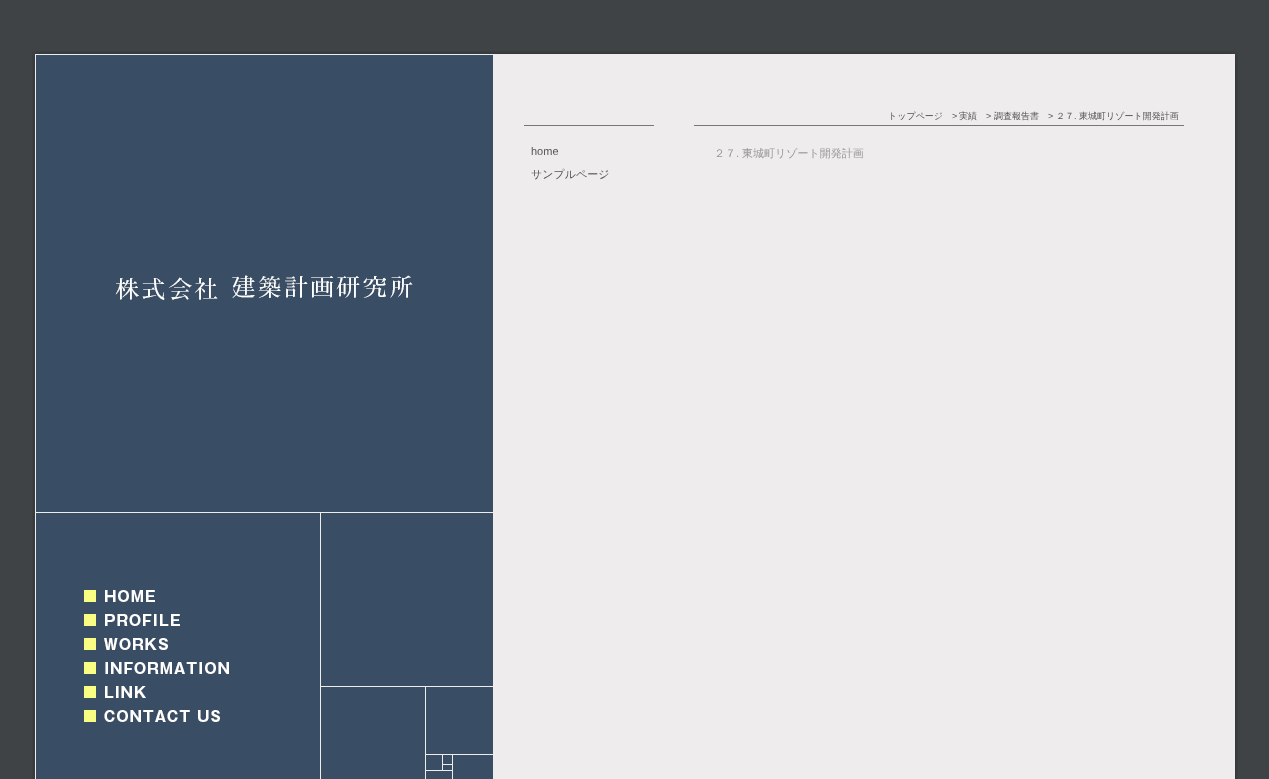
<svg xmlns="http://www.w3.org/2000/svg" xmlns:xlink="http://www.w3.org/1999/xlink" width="1269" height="779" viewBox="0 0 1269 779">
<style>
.cls-1{font:500 9px WenQuanYi Zen Hei;fill:#555555}
.cls-2{font:9px Liberation Sans;fill:#555555}
.cls-3{font:11px Liberation Sans;fill:#555555}
.cls-4{font:500 11px WenQuanYi Zen Hei;fill:#555555}
.cls-5{font:500 11px WenQuanYi Zen Hei;fill:#999999}
.cls-6{font:11px Liberation Sans;fill:#999999}
</style>
<rect width="100%" height="100%" fill="#3f4345"/>
<image xlink:href="image0.png" x="32" y="51" width="1206" height="728"/>
<rect fill="#777777" x="524" y="125" width="130" height="1"/>
<rect fill="#777777" x="694" y="125" width="490" height="1"/>
<text class="cls-1" x="888" y="119">トップページ</text>
<text class="cls-2" x="952" y="119">&gt;</text>
<text class="cls-1" x="959" y="119">実績</text>
<text class="cls-2" x="986" y="119">&gt;</text>
<text class="cls-1" x="994" y="119">調査報告書</text>
<text class="cls-2" x="1048" y="119">&gt;</text>
<text class="cls-1" x="1056" y="119">２７</text>
<text class="cls-2" x="1074" y="119">.</text>
<text class="cls-1" x="1079" y="119">東城町リゾート開発計画</text>
<text class="cls-3" x="531" y="155">home</text>
<text class="cls-4" x="531" y="178">サンプルページ</text>
<text class="cls-5" x="714" y="157">２７</text>
<text class="cls-6" x="736" y="157">.</text>
<text class="cls-5" x="742" y="157">東城町リゾート開発計画</text>
</svg>
